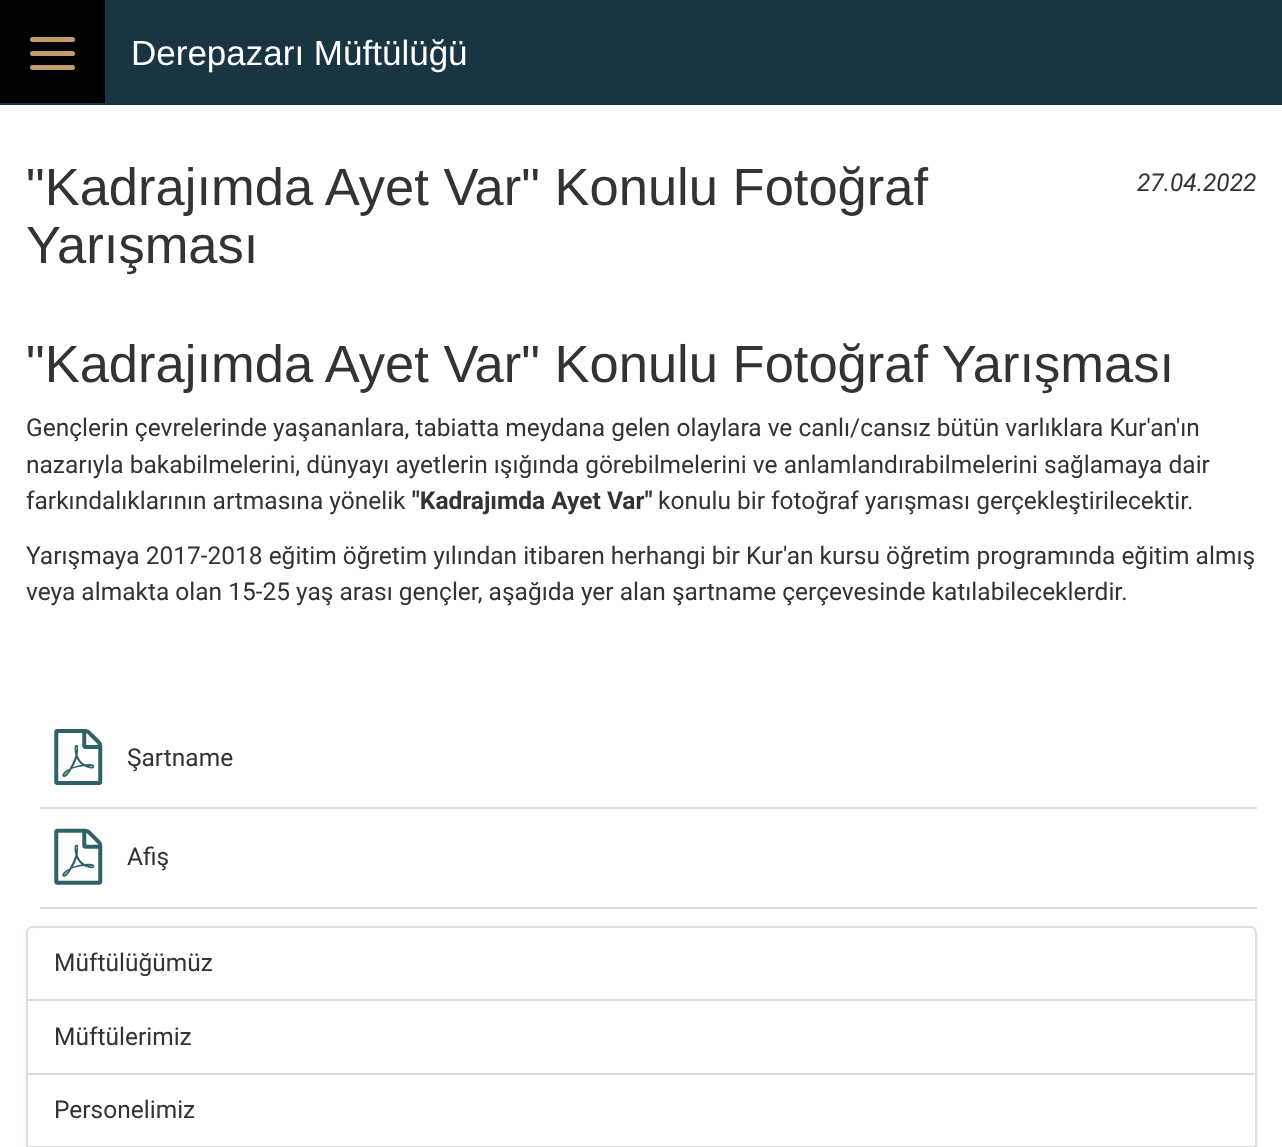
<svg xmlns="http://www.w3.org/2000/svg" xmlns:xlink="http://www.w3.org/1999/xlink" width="1282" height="1147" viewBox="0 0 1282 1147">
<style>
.cls-1{font:35px Liberation Sans;fill:#ffffff}
.cls-2{font:52.5px Liberation Sans;fill:#333333}
.cls-3{font:italic 24.5px Roboto;fill:#333333}
.cls-4{font:24.5px Roboto;fill:#333333}
.cls-5{font:bold 24.5px Roboto;fill:#333333}
</style>
<rect width="100%" height="100%" fill="#ffffff"/>
<rect fill="#193541" x="0" y="0" width="1282" height="105"/>
<rect fill="#000000" x="0" y="0" width="105" height="103"/>
<rect fill="#c59b6a" x="30" y="37" width="45" height="5" rx="2.5"/>
<rect fill="#c59b6a" x="30" y="51" width="45" height="5" rx="2.5"/>
<rect fill="#c59b6a" x="30" y="65" width="45" height="5" rx="2.5"/>
<rect fill="#dddddd" x="40" y="807" width="1217" height="2"/>
<image xlink:href="image0.png" x="54" y="729" width="49" height="56"/>
<rect fill="#dddddd" x="40" y="907" width="1217" height="2"/>
<image xlink:href="image1.png" x="54" y="828" width="49" height="57"/>
<rect fill="#000000" fill-opacity="0.07" filter="blur(2px)" x="26" y="928" width="1231" height="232" rx="7"/>
<path fill="#ffffff" stroke="#dddddd" stroke-width="2" d="M33 927H1250C1253.5 927 1256 929.5 1256 933V1000H27V933C27 929.5 29.5 927 33 927Z"/>
<rect fill="#ffffff" stroke="#dddddd" stroke-width="2" x="27" y="1000" width="1229" height="74"/>
<rect fill="#ffffff" stroke="#dddddd" stroke-width="2" x="27" y="1074" width="1229" height="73"/>
<text class="cls-1" x="131" y="65">Derepazarı Müftülüğü</text>
<text class="cls-2"><tspan x="26" y="205">"Kadrajımda Ayet Var" Konulu Fotoğraf</tspan><tspan x="26" y="263">Yarışması</tspan></text>
<text class="cls-3" x="1137" y="191">27.04.2022</text>
<text class="cls-2" x="26" y="382">"Kadrajımda Ayet Var" Konulu Fotoğraf Yarışması</text>
<text class="cls-4"><tspan x="26" y="436">Gençlerin çevrelerinde yaşananlara, tabiatta meydana gelen olaylara ve canlı/cansız bütün varlıklara Kur'an'ın</tspan><tspan x="26" y="473">nazarıyla bakabilmelerini, dünyayı ayetlerin ışığında görebilmelerini ve anlamlandırabilmelerini sağlamaya dair</tspan><tspan x="26" y="509">farkındalıklarının artmasına yönelik</tspan></text>
<text class="cls-5" x="412" y="509">"Kadrajımda Ayet Var"</text>
<text class="cls-4" x="658" y="509">konulu bir fotoğraf yarışması gerçekleştirilecektir.</text>
<text class="cls-4"><tspan x="26" y="564">Yarışmaya 2017-2018 eğitim öğretim yılından itibaren herhangi bir Kur'an kursu öğretim programında eğitim almış</tspan><tspan x="26" y="600">veya almakta olan 15-25 yaş arası gençler, aşağıda yer alan şartname çerçevesinde katılabileceklerdir.</tspan></text>
<text class="cls-4" x="127" y="766">Şartname</text>
<text class="cls-4" x="127" y="865">Afiş</text>
<text class="cls-4" x="54" y="971">Müftülüğümüz</text>
<text class="cls-4" x="54" y="1045">Müftülerimiz</text>
<text class="cls-4" x="54" y="1118">Personelimiz</text>
</svg>
